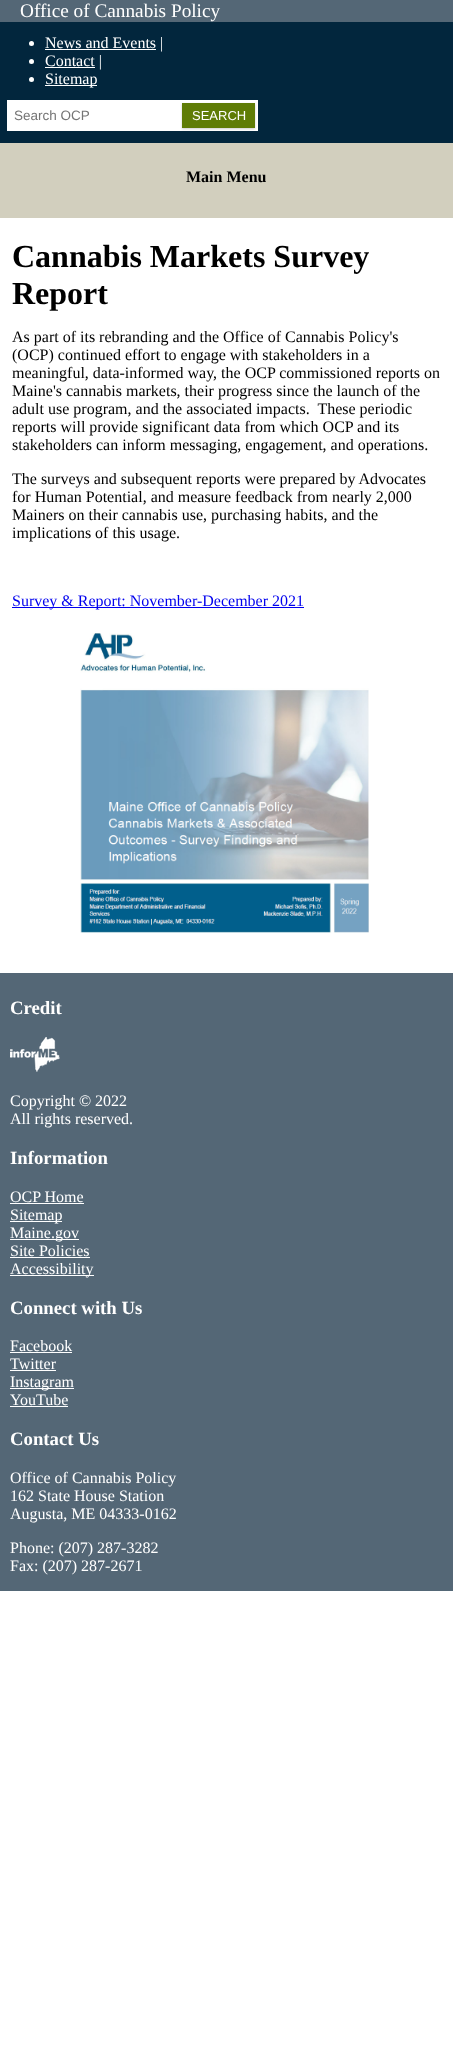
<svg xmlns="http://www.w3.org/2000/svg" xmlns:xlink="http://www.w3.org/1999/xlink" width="453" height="2070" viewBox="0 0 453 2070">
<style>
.cls-1{font:19.25px Liberation Serif;fill:#ffffff}
.cls-2{font:16px Liberation Serif;fill:#ffffff}
.cls-3{font:13.5px Liberation Sans;fill:#757575}
.cls-4{font:13px Liberation Sans;fill:#ffffff}
.cls-5{font:bold 16px Liberation Serif;fill:#000000}
.cls-6{font:bold 32px Liberation Serif;fill:#000000}
.cls-7{font:16px Liberation Serif;fill:#000000}
.cls-8{font:16px Liberation Serif;fill:#0000ee}
.cls-9{font:bold 18.75px Liberation Serif;fill:#ffffff}
</style>
<rect width="100%" height="100%" fill="#ffffff"/>
<rect fill="#546776" x="0" y="0" width="453" height="22"/>
<rect fill="#02263d" x="0" y="22" width="453" height="121"/>
<circle fill="#ffffff" cx="31.5" cy="43.5" r="2.5"/>
<rect fill="#ffffff" x="45" y="49" width="111" height="1"/>
<circle fill="#ffffff" cx="31.5" cy="61.5" r="2.5"/>
<rect fill="#ffffff" x="45" y="67" width="50" height="1"/>
<circle fill="#ffffff" cx="31.5" cy="79.5" r="2.5"/>
<rect fill="#ffffff" x="45" y="85" width="52" height="1"/>
<rect fill="#ffffff" x="7" y="100" width="251" height="31"/>
<rect fill="#000000" fill-opacity="0.2" filter="blur(1px)" x="182" y="104" width="73" height="25"/>
<rect fill="#5f7c06" x="182" y="103" width="73" height="25"/>
<rect fill="#d2cfbe" x="0" y="143" width="453" height="75"/>
<rect fill="#0000ee" x="12" y="607" width="292" height="1"/>
<image xlink:href="image0.png" x="80" y="633" width="289" height="300"/>
<rect fill="#546776" x="0" y="973" width="453" height="618"/>
<image xlink:href="image1.png" x="10" y="1037" width="50" height="35"/>
<rect fill="#ffffff" x="10" y="1203" width="74" height="1"/>
<rect fill="#ffffff" x="10" y="1221" width="52" height="1"/>
<rect fill="#ffffff" x="10" y="1239" width="69" height="1"/>
<rect fill="#ffffff" x="10" y="1257" width="80" height="1"/>
<rect fill="#ffffff" x="10" y="1275" width="84" height="1"/>
<rect fill="#ffffff" x="10" y="1352" width="62" height="1"/>
<rect fill="#ffffff" x="10" y="1370" width="46" height="1"/>
<rect fill="#ffffff" x="10" y="1388" width="64" height="1"/>
<rect fill="#ffffff" x="10" y="1406" width="58" height="1"/>
<text class="cls-1" x="20" y="17">Office of Cannabis Policy</text>
<text class="cls-2"><tspan x="45" y="48">News and Events |</tspan><tspan x="45" y="66">Contact |</tspan><tspan x="45" y="84">Sitemap</tspan></text>
<text class="cls-3" x="14" y="120">Search OCP</text>
<text class="cls-4" x="192" y="120">SEARCH</text>
<text class="cls-5" x="186" y="182">Main Menu</text>
<text class="cls-6"><tspan x="12" y="267">Cannabis Markets Survey</tspan><tspan x="12" y="304">Report</tspan></text>
<text class="cls-7" xml:space="preserve"><tspan x="12" y="342">As part of its rebranding and the Office of Cannabis Policy's</tspan><tspan x="12" y="360">(OCP) continued effort to engage with stakeholders in a</tspan><tspan x="12" y="378">meaningful, data-informed way, the OCP commissioned reports on</tspan><tspan x="12" y="396">Maine's cannabis markets, their progress since the launch of the</tspan><tspan x="12" y="414">adult use program, and the associated impacts.  These periodic</tspan><tspan x="12" y="432">reports will provide significant data from which OCP and its</tspan><tspan x="12" y="450">stakeholders can inform messaging, engagement, and operations.</tspan></text>
<text class="cls-7"><tspan x="12" y="484">The surveys and subsequent reports were prepared by Advocates</tspan><tspan x="12" y="502">for Human Potential, and measure feedback from nearly 2,000</tspan><tspan x="12" y="520">Mainers on their cannabis use, purchasing habits, and the</tspan><tspan x="12" y="538">implications of this usage.</tspan></text>
<text class="cls-8" x="12" y="606">Survey &amp; Report: November-December 2021</text>
<text class="cls-9" x="10" y="1014">Credit</text>
<text class="cls-2"><tspan x="10" y="1106">Copyright © 2022</tspan><tspan x="10" y="1124">All rights reserved.</tspan></text>
<text class="cls-9" x="10" y="1164">Information</text>
<text class="cls-2"><tspan x="10" y="1202">OCP Home</tspan><tspan x="10" y="1220">Sitemap</tspan><tspan x="10" y="1238">Maine.gov</tspan><tspan x="10" y="1256">Site Policies</tspan><tspan x="10" y="1274">Accessibility</tspan></text>
<text class="cls-9" x="10" y="1314">Connect with Us</text>
<text class="cls-2"><tspan x="10" y="1351">Facebook</tspan><tspan x="10" y="1369">Twitter</tspan><tspan x="10" y="1387">Instagram</tspan><tspan x="10" y="1405">YouTube</tspan></text>
<text class="cls-9" x="10" y="1445">Contact Us</text>
<text class="cls-2"><tspan x="10" y="1483">Office of Cannabis Policy</tspan><tspan x="10" y="1501">162 State House Station</tspan><tspan x="10" y="1519">Augusta, ME 04333-0162</tspan></text>
<text class="cls-2"><tspan x="10" y="1553">Phone: (207) 287-3282</tspan><tspan x="10" y="1571">Fax: (207) 287-2671</tspan></text>
</svg>
